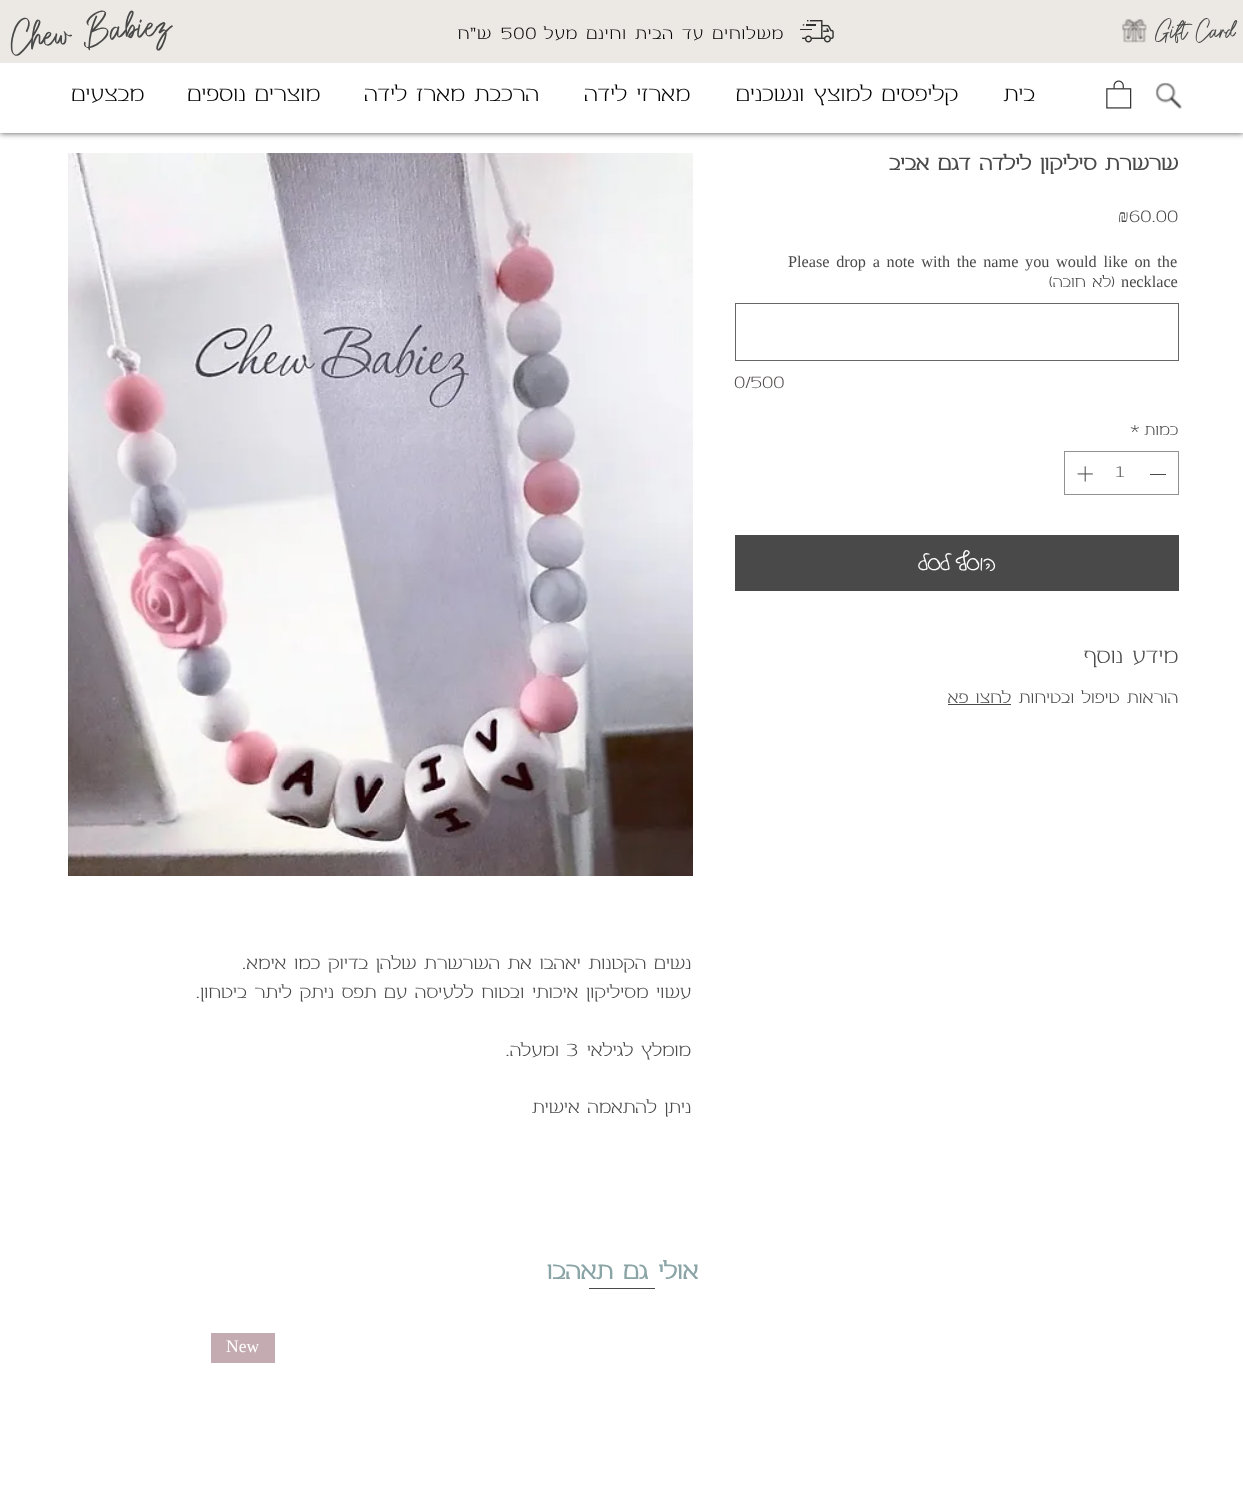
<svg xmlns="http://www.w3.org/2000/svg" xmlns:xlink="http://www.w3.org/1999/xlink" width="1243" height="1509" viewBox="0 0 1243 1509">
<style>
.cls-1{font:17.5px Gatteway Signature;fill:#494949}
.cls-2{font:300 17.5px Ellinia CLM;letter-spacing:0.9px;direction:rtl;fill:#000000}
.cls-3{font:300 17.5px Ellinia CLM;letter-spacing:0.9px;fill:#000000}
.cls-4{font:26.25px Gatteway Signature;fill:#494949}
.cls-5{font:300 22.5px Ellinia CLM;direction:rtl;fill:#000000}
.cls-6{font:bold 21.25px Ellinia CLM;direction:rtl;fill:#494949}
.cls-7{font:300 17.5px Ellinia CLM;fill:#494949}
.cls-8{font:17.5px Liberation Serif;fill:#494949}
.cls-9{font:16.25px Liberation Serif;fill:#494949}
.cls-10{font:300 16.25px Ellinia CLM;direction:rtl;fill:#494949}
.cls-11{font:300 17.5px Ellinia CLM;fill:#534f4e}
.cls-12{font:300 16.25px Ellinia CLM;fill:#494949}
.cls-13{font:bold 22.5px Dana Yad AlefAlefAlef;direction:rtl;fill:#ffffff}
.cls-14{font:300 22.5px Ellinia CLM;direction:rtl;fill:#494949}
.cls-15{font:300 17.5px Ellinia CLM;direction:rtl;fill:#494949}
.cls-16{font:300 18.75px Ellinia CLM;direction:rtl;fill:#494949}
.cls-17{font:300 18.75px Ellinia CLM;fill:#494949}
.cls-18{font:bold 25px Ellinia CLM;direction:rtl;fill:#8aa4a6}
.cls-19{font:17.5px Liberation Serif;fill:#ffffff}
</style>
<rect width="100%" height="100%" fill="#ffffff"/>
<rect fill="#000000" fill-opacity="0.7" filter="blur(3px)" x="0" y="0" width="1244" height="133"/>
<rect fill="#ece9e4" x="0" y="0" width="1243" height="63"/>
<image xlink:href="image0.png" x="1122" y="19" width="25" height="24"/>
<image xlink:href="image1.png" x="800" y="20" width="34" height="23"/>
<rect fill="#ffffff" x="0" y="63" width="1243" height="70"/>
<image xlink:href="image2.png" x="1155" y="82" width="27" height="27"/>
<image xlink:href="image3.png" x="1106" y="80" width="26" height="29"/>
<rect fill="none" stroke="#666666" x="735.5" y="303.5" width="443" height="57"/>
<rect fill="none" stroke="#929292" x="1064.5" y="451.5" width="114" height="43"/>
<rect fill="#494949" x="1150" y="474" width="16" height="1"/>
<image xlink:href="image4.png" x="1077" y="466" width="16" height="16"/>
<rect fill="#494949" x="735" y="535" width="444" height="56"/>
<rect fill="#494949" x="948" y="704" width="63" height="1"/>
<image xlink:href="image5.png" x="68" y="153" width="625" height="723"/>
<rect fill="#c4abb1" x="211" y="1333" width="64" height="30"/>
<rect fill="#494949" x="589" y="1288" width="66" height="1"/>
<text class="cls-1" x="1155" y="38">Gift Card</text>
<text class="cls-2" x="784" y="39">משלוחים עד הבית וחינם מעל</text>
<text class="cls-3" x="501" y="39">500</text>
<text class="cls-2" x="492" y="39">ש"ח</text>
<text class="cls-4" x="11" y="49" transform="rotate(-5.2 11 49)">Chew Babiez</text>
<text class="cls-5" x="1035" y="101">בית</text>
<text class="cls-5" x="958" y="101">קליפסים למוצץ ונשכנים</text>
<text class="cls-5" x="690" y="101">מארזי לידה</text>
<text class="cls-5" x="539" y="101">הרכבת מארז לידה</text>
<text class="cls-5" x="320" y="101">מוצרים נוספים</text>
<text class="cls-5" x="144" y="101">מבצעים</text>
<text class="cls-6" x="1178" y="170">שרשרת סיליקון לילדה דגם אביב</text>
<text class="cls-7" x="1129" y="222">60.00</text>
<text class="cls-8" x="1118" y="222">₪</text>
<text class="cls-9" x="788" y="267" word-spacing="2.6">Please drop a note with the name you would like on the</text>
<text class="cls-9" x="1121" y="287">necklace</text>
<text class="cls-10" x="1115" y="287">(לא חובה)</text>
<text class="cls-11" x="734" y="388">0/500</text>
<text class="cls-10" x="1178" y="435">כמות</text>
<text class="cls-12" x="1130" y="435">*</text>
<text class="cls-12" x="1115" y="477">1</text>
<text class="cls-13" x="995" y="570">הוסף לסל</text>
<text class="cls-14" x="1178" y="663">מידע נוסף</text>
<text class="cls-15" x="1178" y="703">הוראות טיפול ובטיחות</text>
<text class="cls-15" x="1011" y="703">לחצו פא</text>
<text class="cls-16"><tspan x="691" y="969">נשים הקטנות יאהבו את השרשרת שלהן בדיוק כמו אימא.</tspan><tspan x="691" y="998">עשוי מסיליקון איכותי ובטוח ללעיסה עם תפס ניתק ליתר ביטחון.</tspan></text>
<text class="cls-16" x="691" y="1056">מומלץ לגילאי</text>
<text class="cls-17" x="566" y="1056">3</text>
<text class="cls-16" x="559" y="1056">ומעלה.</text>
<text class="cls-16" x="691" y="1113">ניתן להתאמה אישית</text>
<text class="cls-18" x="698" y="1279">אולי גם תאהבו</text>
<text class="cls-19" x="226" y="1352">New</text>
</svg>
